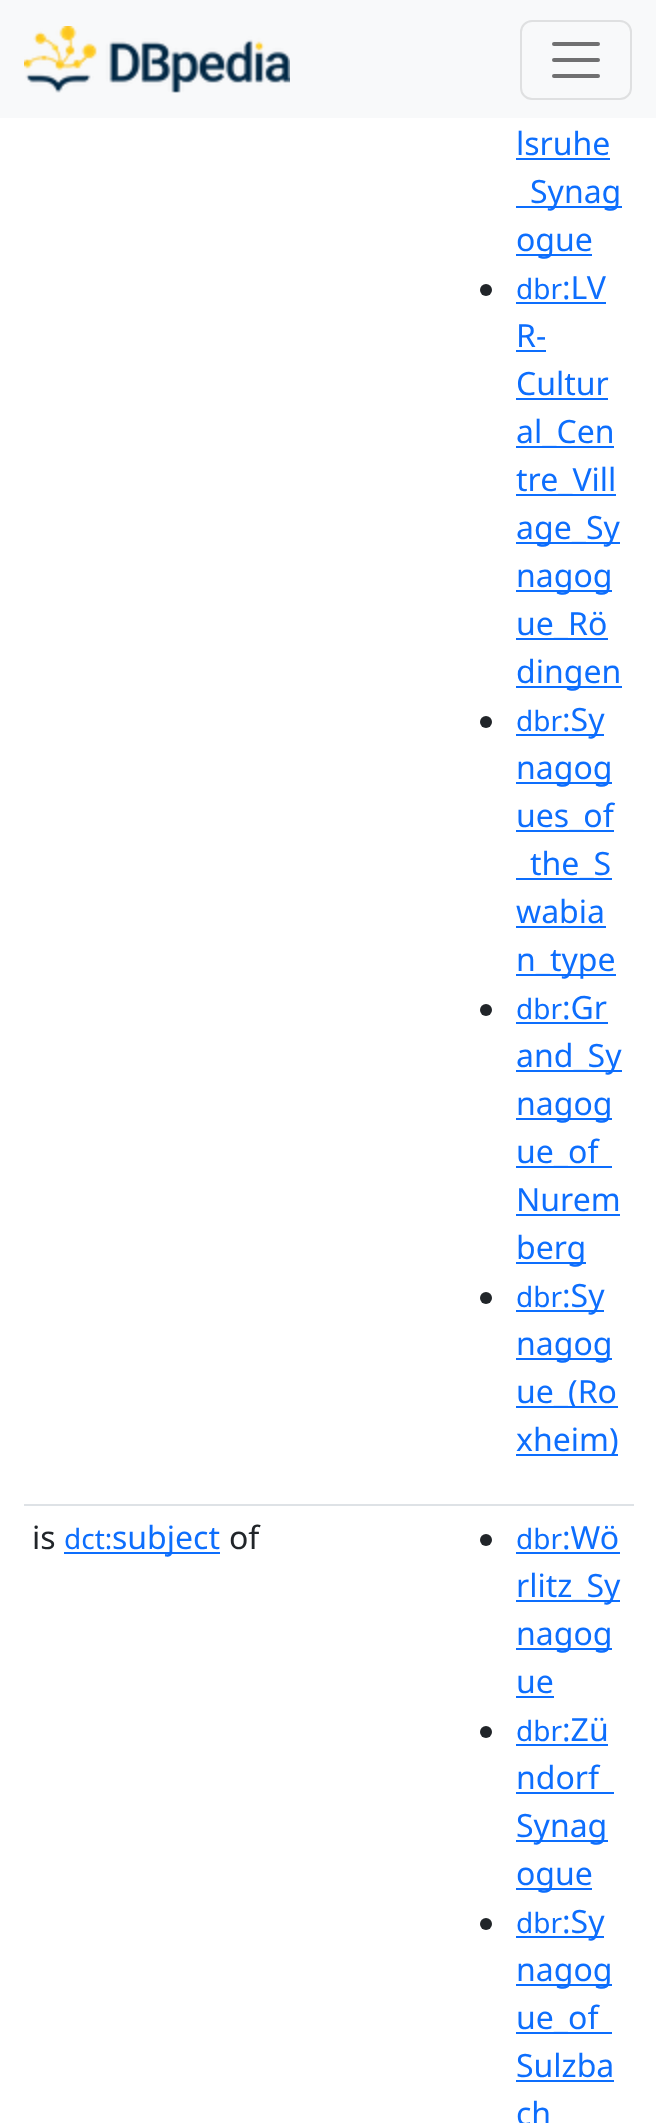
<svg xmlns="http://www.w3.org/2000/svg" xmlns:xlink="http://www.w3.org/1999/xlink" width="656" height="2123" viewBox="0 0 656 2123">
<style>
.cls-1{font:32px Noto Sans;fill:#0d6efd}
.cls-2{font:28px Noto Sans;fill:#0d6efd}
.cls-3{font:32px Noto Sans;fill:#212529}
</style>
<rect width="100%" height="100%" fill="#ffffff"/>
<rect fill="#f8f9fa" x="0" y="0" width="656" height="118"/>
<image xlink:href="image0.png" x="24" y="26" width="266" height="67"/>
<rect fill="none" stroke="#dfe0e1" stroke-width="2" x="521" y="21" width="110" height="78" rx="11"/>
<path fill="none" stroke="#707071" stroke-width="4" stroke-linecap="round" d="M554 44H598M554 60H598M554 76H598"/>
<rect fill="#dee2e6" x="24" y="1504" width="610" height="2"/>
<rect fill="#0d6efd" x="516" y="158" width="94" height="2"/>
<rect fill="#0d6efd" x="516" y="206" width="106" height="2"/>
<rect fill="#0d6efd" x="516" y="254" width="76" height="2"/>
<circle fill="#212529" cx="486" cy="290" r="6"/>
<rect fill="#0d6efd" x="516" y="302" width="90" height="2"/>
<rect fill="#0d6efd" x="516" y="350" width="30" height="2"/>
<rect fill="#0d6efd" x="516" y="398" width="92" height="2"/>
<rect fill="#0d6efd" x="516" y="446" width="98" height="2"/>
<rect fill="#0d6efd" x="516" y="494" width="100" height="2"/>
<rect fill="#0d6efd" x="516" y="542" width="104" height="2"/>
<rect fill="#0d6efd" x="516" y="590" width="96" height="2"/>
<rect fill="#0d6efd" x="516" y="638" width="92" height="2"/>
<rect fill="#0d6efd" x="516" y="686" width="106" height="2"/>
<circle fill="#212529" cx="486" cy="722" r="6"/>
<rect fill="#0d6efd" x="516" y="734" width="88" height="2"/>
<rect fill="#0d6efd" x="516" y="782" width="96" height="2"/>
<rect fill="#0d6efd" x="516" y="830" width="98" height="2"/>
<rect fill="#0d6efd" x="516" y="878" width="96" height="2"/>
<rect fill="#0d6efd" x="516" y="926" width="90" height="2"/>
<rect fill="#0d6efd" x="516" y="974" width="100" height="2"/>
<circle fill="#212529" cx="486" cy="1010" r="6"/>
<rect fill="#0d6efd" x="516" y="1022" width="92" height="2"/>
<rect fill="#0d6efd" x="516" y="1070" width="106" height="2"/>
<rect fill="#0d6efd" x="516" y="1118" width="96" height="2"/>
<rect fill="#0d6efd" x="516" y="1166" width="96" height="2"/>
<rect fill="#0d6efd" x="516" y="1214" width="104" height="2"/>
<rect fill="#0d6efd" x="516" y="1262" width="70" height="2"/>
<circle fill="#212529" cx="486" cy="1298" r="6"/>
<rect fill="#0d6efd" x="516" y="1310" width="88" height="2"/>
<rect fill="#0d6efd" x="516" y="1358" width="96" height="2"/>
<rect fill="#0d6efd" x="516" y="1406" width="102" height="2"/>
<rect fill="#0d6efd" x="516" y="1454" width="102" height="2"/>
<rect fill="#0d6efd" x="64" y="1552" width="156" height="2"/>
<circle fill="#212529" cx="486" cy="1540" r="6"/>
<rect fill="#0d6efd" x="516" y="1552" width="104" height="2"/>
<rect fill="#0d6efd" x="516" y="1600" width="104" height="2"/>
<rect fill="#0d6efd" x="516" y="1648" width="96" height="2"/>
<rect fill="#0d6efd" x="516" y="1696" width="38" height="2"/>
<circle fill="#212529" cx="486" cy="1732" r="6"/>
<rect fill="#0d6efd" x="516" y="1744" width="92" height="2"/>
<rect fill="#0d6efd" x="516" y="1792" width="98" height="2"/>
<rect fill="#0d6efd" x="516" y="1840" width="92" height="2"/>
<rect fill="#0d6efd" x="516" y="1888" width="76" height="2"/>
<circle fill="#212529" cx="486" cy="1924" r="6"/>
<rect fill="#0d6efd" x="516" y="1936" width="88" height="2"/>
<rect fill="#0d6efd" x="516" y="1984" width="96" height="2"/>
<rect fill="#0d6efd" x="516" y="2032" width="96" height="2"/>
<rect fill="#0d6efd" x="516" y="2080" width="98" height="2"/>
<text class="cls-1" x="516" y="155">lsruhe</text>
<text class="cls-1" x="530" y="203">Synag</text>
<text class="cls-1" x="516" y="251">ogue</text>
<text class="cls-2" x="516" y="299">dbr</text>
<text class="cls-1" x="562" y="299">:LV</text>
<text class="cls-1"><tspan x="516" y="347">R-</tspan><tspan x="516" y="395">Cultur</tspan><tspan x="516" y="443">al_Cen</tspan><tspan x="516" y="491">tre_Vill</tspan><tspan x="516" y="539">age_Sy</tspan><tspan x="516" y="587">nagog</tspan><tspan x="516" y="635">ue_Rö</tspan><tspan x="516" y="683">dingen</tspan></text>
<text class="cls-2" x="516" y="731">dbr</text>
<text class="cls-1" x="562" y="731">:Sy</text>
<text class="cls-1"><tspan x="516" y="779">nagog</tspan><tspan x="516" y="827">ues_of</tspan></text>
<text class="cls-1" x="530" y="875">the_S</text>
<text class="cls-1"><tspan x="516" y="923">wabia</tspan><tspan x="516" y="971">n_type</tspan></text>
<text class="cls-2" x="516" y="1019">dbr</text>
<text class="cls-1" x="562" y="1019">:Gr</text>
<text class="cls-1"><tspan x="516" y="1067">and_Sy</tspan><tspan x="516" y="1115">nagog</tspan><tspan x="516" y="1163">ue_of</tspan><tspan x="516" y="1211">Nurem</tspan><tspan x="516" y="1259">berg</tspan></text>
<text class="cls-2" x="516" y="1307">dbr</text>
<text class="cls-1" x="562" y="1307">:Sy</text>
<text class="cls-1"><tspan x="516" y="1355">nagog</tspan><tspan x="516" y="1403">ue_(Ro</tspan><tspan x="516" y="1451">xheim)</tspan></text>
<text class="cls-3" x="32" y="1549">is</text>
<text class="cls-2" x="64" y="1549">dct:</text>
<text class="cls-1" x="112" y="1549">subject</text>
<text class="cls-3" x="229" y="1549">of</text>
<text class="cls-2" x="516" y="1549">dbr</text>
<text class="cls-1" x="562" y="1549">:Wö</text>
<text class="cls-1"><tspan x="516" y="1597">rlitz_Sy</tspan><tspan x="516" y="1645">nagog</tspan><tspan x="516" y="1693">ue</tspan></text>
<text class="cls-2" x="516" y="1741">dbr</text>
<text class="cls-1" x="562" y="1741">:Zü</text>
<text class="cls-1"><tspan x="516" y="1789">ndorf</tspan><tspan x="516" y="1837">Synag</tspan><tspan x="516" y="1885">ogue</tspan></text>
<text class="cls-2" x="516" y="1933">dbr</text>
<text class="cls-1" x="562" y="1933">:Sy</text>
<text class="cls-1"><tspan x="516" y="1981">nagog</tspan><tspan x="516" y="2029">ue_of</tspan><tspan x="516" y="2077">Sulzba</tspan><tspan x="516" y="2125">ch</tspan></text>
</svg>
